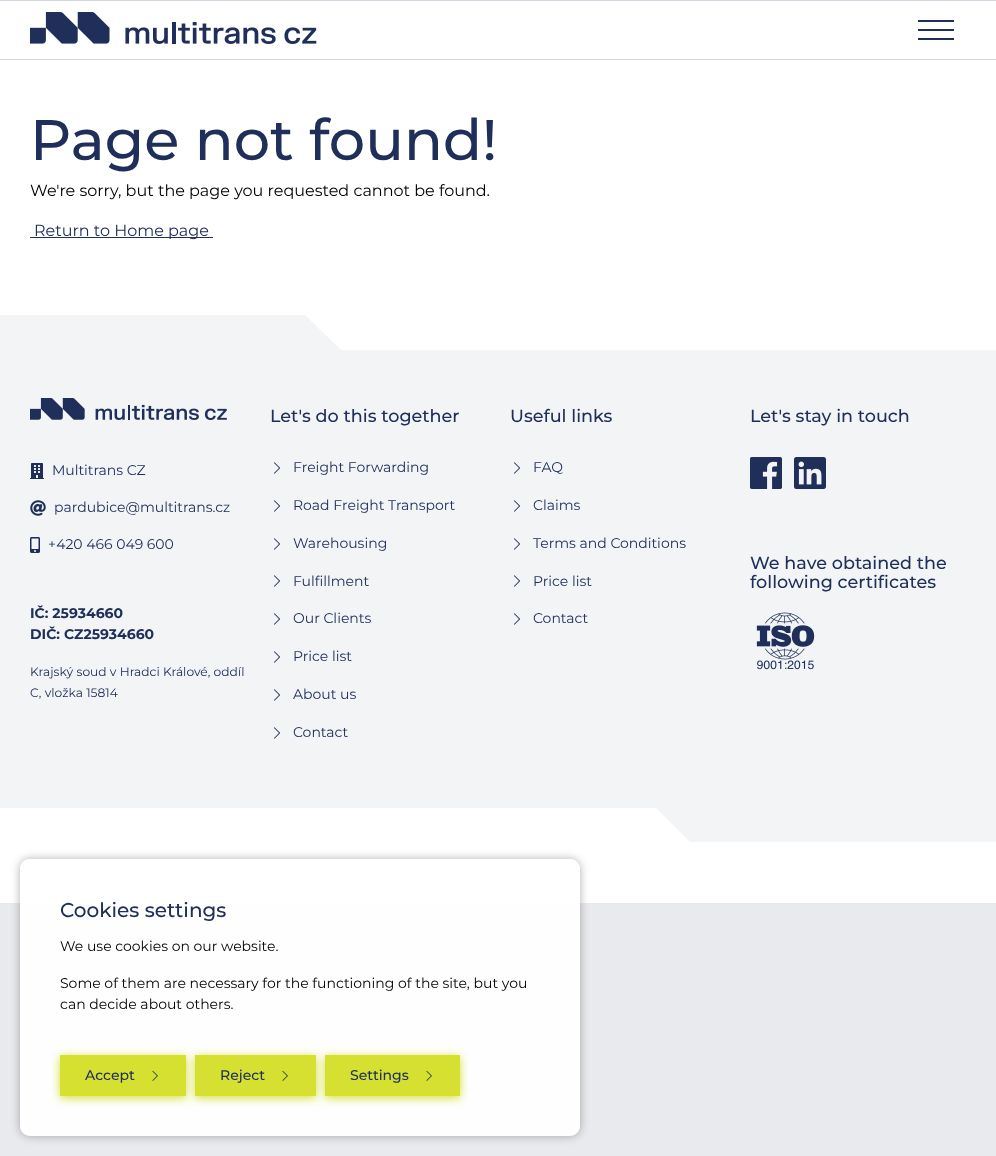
<svg xmlns="http://www.w3.org/2000/svg" xmlns:xlink="http://www.w3.org/1999/xlink" width="996" height="1156" viewBox="0 0 996 1156">
<style>
.cls-1{font:500 57.25px Montserrat;fill:#202f5a}
.cls-2{font:16px Montserrat;fill:#000000}
.cls-3{font:16px Montserrat;fill:#202f5a}
.cls-4{font:14px Montserrat;fill:#202f5a}
.cls-5{font:bold 14px Montserrat;fill:#202f5a}
.cls-6{font:12.25px Montserrat;fill:#202f5a}
.cls-7{font:500 17.6px Montserrat;fill:#202f5a}
.cls-8{font:500 20px Montserrat;fill:#202f5a}
.cls-9{font:14px Montserrat;fill:#000000}
.cls-10{font:500 14px Montserrat;fill:#202f5a}
</style>
<defs>
<clipPath id="clip1"><path d="M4 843H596V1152H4ZM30 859H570C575.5 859 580 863.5 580 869V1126C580 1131.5 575.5 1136 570 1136H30C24.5 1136 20 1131.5 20 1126V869C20 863.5 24.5 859 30 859Z" clip-rule="evenodd"/></clipPath>
</defs>
<rect width="100%" height="100%" fill="#e9eaed"/>
<rect fill="#ffffff" x="0" y="1" width="996" height="902"/>
<rect fill="#d3d5df" x="0" y="0" width="996" height="1"/>
<rect fill="#d3d5df" x="0" y="59" width="996" height="1"/>
<image xlink:href="image0.png" x="30" y="12" width="287" height="32"/>
<rect fill="#202f5a" x="918" y="20" width="36" height="2"/>
<rect fill="#202f5a" x="918" y="29" width="36" height="2"/>
<rect fill="#202f5a" x="918" y="38" width="36" height="2"/>
<rect fill="#202f5a" x="30" y="237" width="183" height="1"/>
<path fill="#f2f4f6" d="M341 350L305 315H0V350Z"/>
<rect fill="#f2f4f6" x="0" y="350" width="996" height="458"/>
<image xlink:href="image1.png" x="30" y="398" width="197" height="22"/>
<image xlink:href="image2.png" x="30" y="463" width="14" height="16"/>
<image xlink:href="image3.png" x="30" y="500" width="16" height="16"/>
<image xlink:href="image4.png" x="30" y="537" width="10" height="16"/>
<image xlink:href="image5.png" x="274" y="462" width="6" height="12"/>
<image xlink:href="image5.png" x="274" y="500" width="6" height="12"/>
<image xlink:href="image5.png" x="274" y="538" width="6" height="12"/>
<image xlink:href="image5.png" x="274" y="575" width="6" height="12"/>
<image xlink:href="image5.png" x="274" y="613" width="6" height="12"/>
<image xlink:href="image5.png" x="274" y="651" width="6" height="12"/>
<image xlink:href="image5.png" x="274" y="689" width="6" height="12"/>
<image xlink:href="image5.png" x="274" y="727" width="6" height="12"/>
<image xlink:href="image5.png" x="514" y="462" width="6" height="12"/>
<image xlink:href="image5.png" x="514" y="500" width="6" height="12"/>
<image xlink:href="image5.png" x="514" y="538" width="6" height="12"/>
<image xlink:href="image5.png" x="514" y="575" width="6" height="12"/>
<image xlink:href="image5.png" x="514" y="613" width="6" height="12"/>
<image xlink:href="image6.png" x="750" y="457" width="32" height="32"/>
<image xlink:href="image7.png" x="794" y="457" width="32" height="32"/>
<image xlink:href="image8.png" x="756" y="612" width="59" height="58"/>
<path fill="#f2f4f6" d="M655 807L690 842H996V807Z"/>
<g clip-path="url(#clip1)">
<rect fill="#000000" fill-opacity="0.3" filter="blur(5px)" x="20" y="859" width="560" height="277" rx="10"/>
</g>
<rect fill="#ffffff" fill-opacity="0.95" x="20" y="859" width="560" height="277" rx="10"/>
<rect fill="#d6e031" filter="blur(5px)" x="60" y="1057" width="126" height="41"/>
<rect fill="#d6e031" x="60" y="1055" width="126" height="41"/>
<image xlink:href="image9.png" x="152" y="1070" width="6" height="11"/>
<rect fill="#d6e031" filter="blur(5px)" x="195" y="1057" width="121" height="41"/>
<rect fill="#d6e031" x="195" y="1055" width="121" height="41"/>
<image xlink:href="image9.png" x="282" y="1070" width="6" height="11"/>
<rect fill="#d6e031" filter="blur(5px)" x="325" y="1057" width="135" height="41"/>
<rect fill="#d6e031" x="325" y="1055" width="135" height="41"/>
<image xlink:href="image9.png" x="426" y="1070" width="6" height="11"/>
<text class="cls-1" x="30" y="160">Page not found!</text>
<text class="cls-2" x="30" y="196">We're sorry, but the page you requested cannot be found.</text>
<text class="cls-3" x="34" y="236">Return to Home page</text>
<text class="cls-4" x="52" y="475">Multitrans CZ</text>
<text class="cls-4" x="54" y="512">pardubice@multitrans.cz</text>
<text class="cls-4" x="48" y="549">+420 466 049 600</text>
<text class="cls-5"><tspan x="30" y="618">IČ: 25934660</tspan><tspan x="30" y="639">DIČ: CZ25934660</tspan></text>
<text class="cls-6"><tspan x="30" y="676">Krajský soud v Hradci Králové, oddíl</tspan><tspan x="30" y="697">C, vložka 15814</tspan></text>
<text class="cls-7" x="270" y="422">Let's do this together</text>
<text class="cls-4" x="293" y="472">Freight Forwarding</text>
<text class="cls-4" x="293" y="510">Road Freight Transport</text>
<text class="cls-4" x="293" y="548">Warehousing</text>
<text class="cls-4" x="293" y="586">Fulfillment</text>
<text class="cls-4" x="293" y="623">Our Clients</text>
<text class="cls-4" x="293" y="661">Price list</text>
<text class="cls-4" x="293" y="699">About us</text>
<text class="cls-4" x="293" y="737">Contact</text>
<text class="cls-7" x="510" y="422">Useful links</text>
<text class="cls-4" x="533" y="472">FAQ</text>
<text class="cls-4" x="533" y="510">Claims</text>
<text class="cls-4" x="533" y="548">Terms and Conditions</text>
<text class="cls-4" x="533" y="586">Price list</text>
<text class="cls-4" x="533" y="623">Contact</text>
<text class="cls-7" x="750" y="422">Let's stay in touch</text>
<text class="cls-7"><tspan x="750" y="569">We have obtained the</tspan><tspan x="750" y="588">following certificates</tspan></text>
<text class="cls-8" x="60" y="917">Cookies settings</text>
<text class="cls-9" x="60" y="951">We use cookies on our website.</text>
<text class="cls-9"><tspan x="60" y="988">Some of them are necessary for the functioning of the site, but you</tspan><tspan x="60" y="1009">can decide about others.</tspan></text>
<text class="cls-10" x="85" y="1080">Accept</text>
<text class="cls-10" x="220" y="1080">Reject</text>
<text class="cls-10" x="350" y="1080">Settings</text>
</svg>
